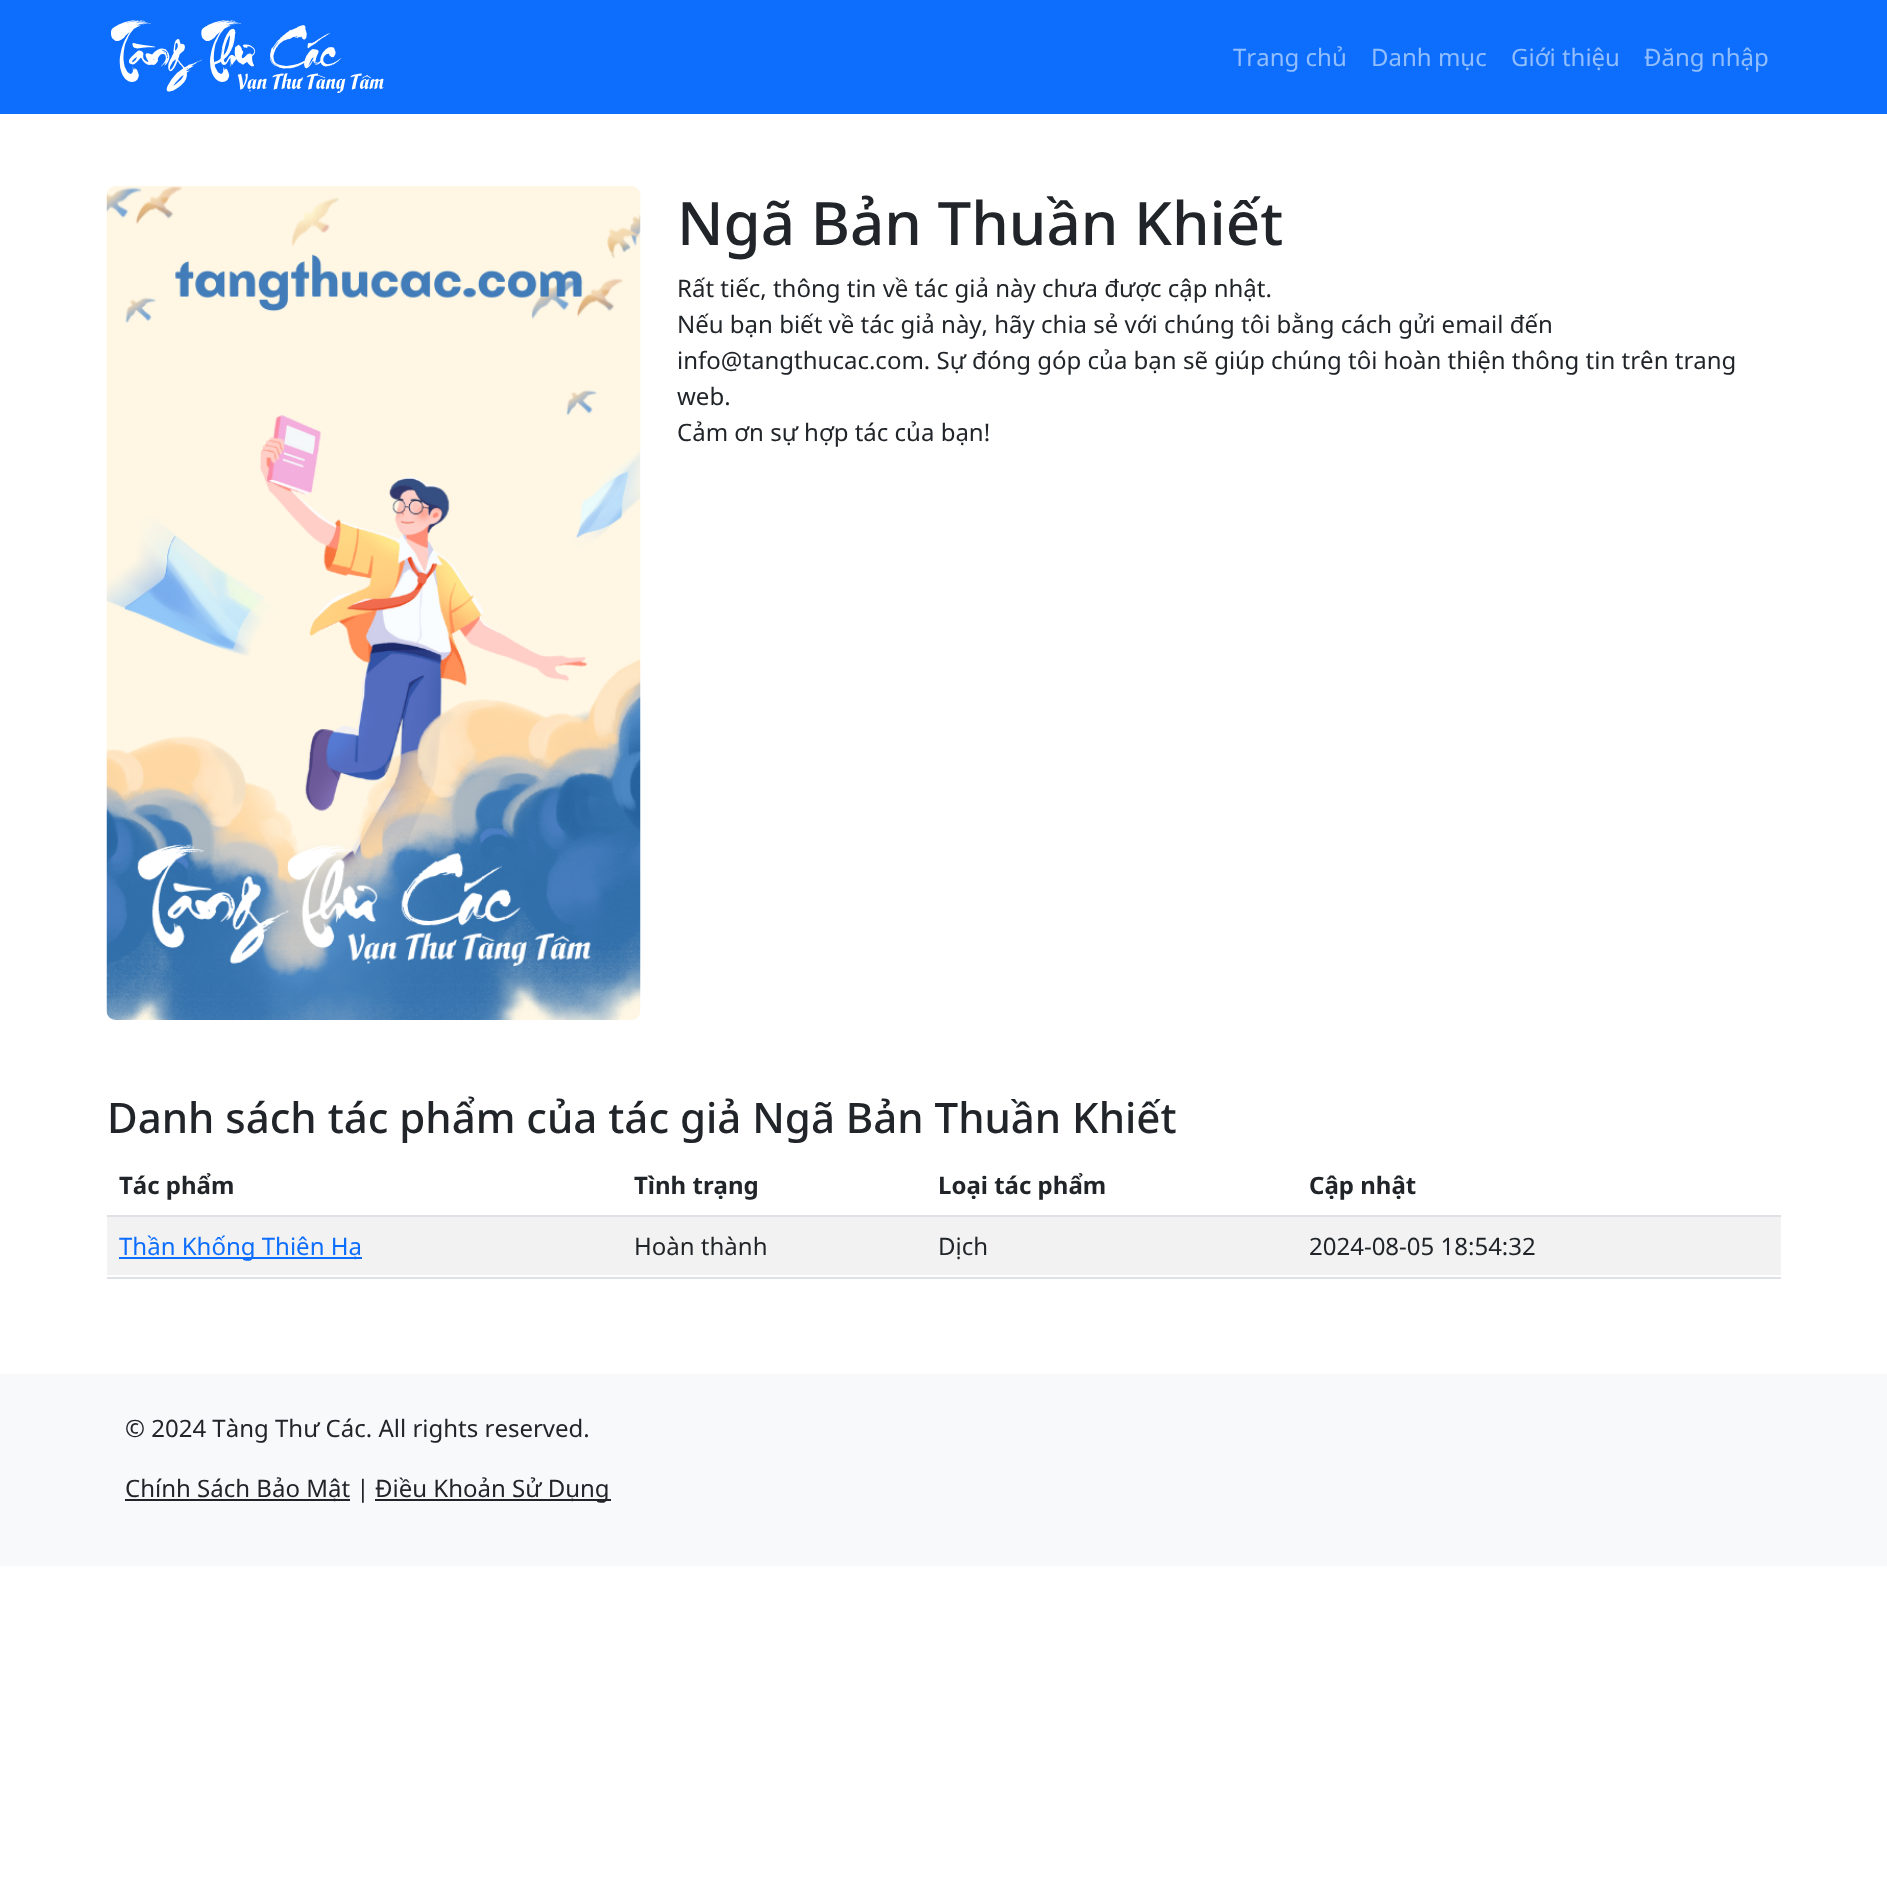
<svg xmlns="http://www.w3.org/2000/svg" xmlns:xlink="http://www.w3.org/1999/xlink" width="1887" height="1893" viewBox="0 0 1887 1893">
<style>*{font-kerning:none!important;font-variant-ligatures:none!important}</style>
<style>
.cls-1{font:24px Noto Sans;fill:#92befe}
.cls-2{font:500 60px Noto Sans;fill:#212529}
.cls-3{font:24px Noto Sans;fill:#212529}
.cls-4{font:500 42px Noto Sans;fill:#212529}
.cls-5{font:bold 24px Noto Sans;fill:#212529}
.cls-6{font:24px Noto Sans;fill:#0d6efd}
</style>
<rect width="100%" height="100%" fill="#ffffff"/>
<rect fill="#0d6efd" x="0" y="0" width="1887" height="114"/>
<image xlink:href="image0.png" x="111" y="20" width="273" height="73"/>
<image xlink:href="image1.png" x="106" y="186" width="535" height="834"/>
<rect fill="#dee2e6" x="107" y="1215" width="1674" height="2"/>
<rect fill="#f2f2f2" x="107" y="1217" width="1674" height="58"/>
<rect fill="#0d6efd" x="119" y="1257" width="243" height="2"/>
<rect fill="#dee2e6" x="107" y="1277" width="1674" height="2"/>
<rect fill="#f8f9fa" x="0" y="1374" width="1887" height="192"/>
<rect fill="#212529" x="125" y="1499" width="225" height="2"/>
<rect fill="#212529" x="375" y="1499" width="236" height="2"/>
<text class="cls-1" x="1233" y="66">Trang chủ</text>
<text class="cls-1" x="1371" y="66">Danh mục</text>
<text class="cls-1" x="1511" y="66">Giới thiệu</text>
<text class="cls-1" x="1644" y="66">Đăng nhập</text>
<text class="cls-2" x="677" y="245">Ngã Bản Thuần Khiết</text>
<text class="cls-3"><tspan x="677" y="297">Rất tiếc, thông tin về tác giả này chưa được cập nhật.</tspan><tspan x="677" y="333">Nếu bạn biết về tác giả này, hãy chia sẻ với chúng tôi bằng cách gửi email đến</tspan><tspan x="677" y="369">info@tangthucac.com. Sự đóng góp của bạn sẽ giúp chúng tôi hoàn thiện thông tin trên trang</tspan><tspan x="677" y="405">web.</tspan><tspan x="677" y="441">Cảm ơn sự hợp tác của bạn!</tspan></text>
<text class="cls-4" x="107" y="1133">Danh sách tác phẩm của tác giả Ngã Bản Thuần Khiết</text>
<text class="cls-5" x="119" y="1194">Tác phẩm</text>
<text class="cls-5" x="634" y="1194">Tình trạng</text>
<text class="cls-5" x="938" y="1194">Loại tác phẩm</text>
<text class="cls-5" x="1309" y="1194">Cập nhật</text>
<text class="cls-6" x="119" y="1255">Thần Khống Thiên Hạ</text>
<text class="cls-3" x="634" y="1255">Hoàn thành</text>
<text class="cls-3" x="938" y="1255">Dịch</text>
<text class="cls-3" x="1309" y="1255">2024-08-05 18:54:32</text>
<text class="cls-3" x="125" y="1437">© 2024 Tàng Thư Các. All rights reserved.</text>
<text class="cls-3" x="125" y="1497">Chính Sách Bảo Mật |</text>
<text class="cls-3" x="375" y="1497">Điều Khoản Sử Dụng</text>
</svg>
